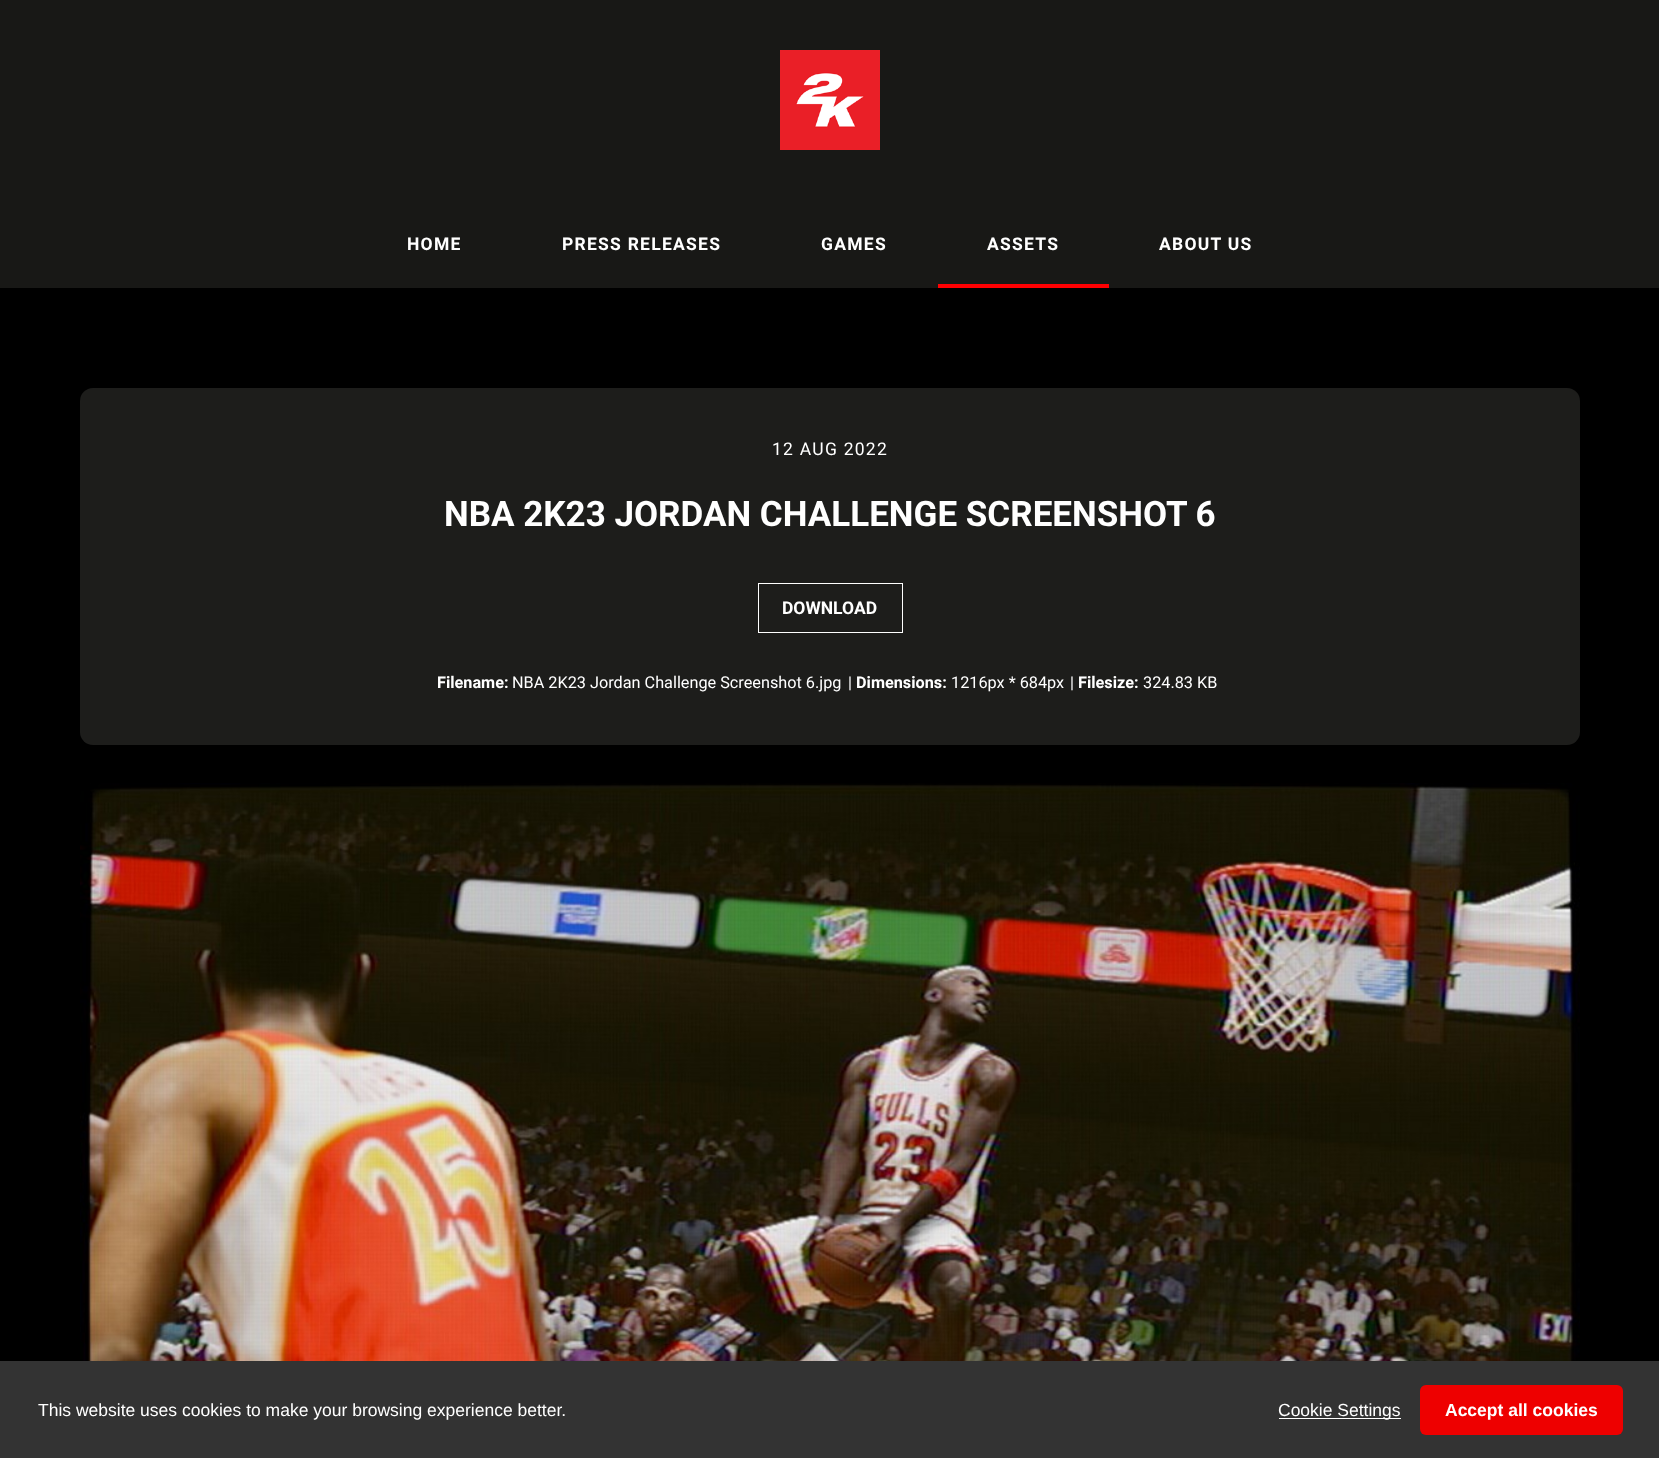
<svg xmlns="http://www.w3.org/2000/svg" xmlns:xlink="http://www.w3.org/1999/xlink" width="1659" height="1458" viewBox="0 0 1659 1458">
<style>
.cls-1{font:bold 17.5px 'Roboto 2';letter-spacing:1.25px;fill:#ffffff}
.cls-2{font:17.5px Roboto;letter-spacing:1.25px;fill:#ffffff}
.cls-3{font:bold 35px Roboto;fill:#ffffff}
.cls-4{font:bold 17.5px Roboto;fill:#ffffff}
.cls-5{font:bold 16.25px 'Roboto 2';fill:#ffffff}
.cls-6{font:16.25px Roboto;fill:#ffffff}
.cls-7{font:17.5px Liberation Sans;fill:#ffffff}
.cls-8{font:bold 17.5px Liberation Sans;fill:#ffffff}
</style>
<rect width="100%" height="100%" fill="#000000"/>
<rect fill="#181816" x="0" y="0" width="1659" height="288"/>
<image xlink:href="image0.png" x="780" y="50" width="100" height="100"/>
<rect fill="#ff0002" x="938" y="284" width="171" height="4"/>
<rect fill="#1d1d1b" x="80" y="388" width="1500" height="357" rx="13"/>
<rect fill="none" stroke="#ffffff" x="758.5" y="583.5" width="144" height="49"/>
<image xlink:href="image1.png" x="80" y="783" width="1500" height="578"/>
<rect fill="#333333" x="0" y="1361" width="1659" height="97"/>
<rect fill="#ffffff" x="1279" y="1418" width="122" height="1"/>
<rect fill="#ee0000" x="1420" y="1385" width="203" height="50" rx="6"/>
<text class="cls-1" x="407" y="250">HOME</text>
<text class="cls-1" x="562" y="250">PRESS RELEASES</text>
<text class="cls-1" x="821" y="250">GAMES</text>
<text class="cls-1" x="987" y="250">ASSETS</text>
<text class="cls-1" x="1159" y="250">ABOUT US</text>
<text class="cls-2" x="772" y="455">12 AUG 2022</text>
<text class="cls-3" x="444" y="526">NBA 2K23 JORDAN CHALLENGE SCREENSHOT 6</text>
<text class="cls-4" x="782" y="614">DOWNLOAD</text>
<text class="cls-5" x="437" y="688">Filename:</text>
<text class="cls-6" x="512" y="688">NBA 2K23 Jordan Challenge Screenshot 6.jpg</text>
<text class="cls-6" x="848" y="688">|</text>
<text class="cls-5" x="856" y="688">Dimensions:</text>
<text class="cls-6" x="951" y="688">1216px * 684px</text>
<text class="cls-6" x="1070" y="688">|</text>
<text class="cls-5" x="1078" y="688">Filesize:</text>
<text class="cls-6" x="1143" y="688">324.83 KB</text>
<text class="cls-7" x="38" y="1416">This website uses cookies to make your browsing experience better.</text>
<text class="cls-7" x="1278" y="1416">Cookie Settings</text>
<text class="cls-8" x="1445" y="1416">Accept all cookies</text>
</svg>
